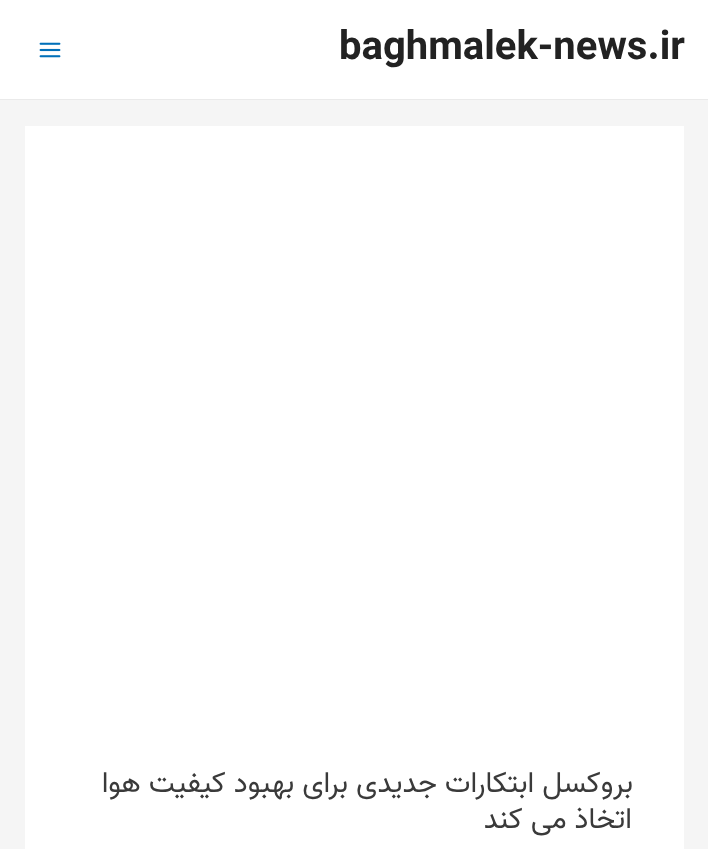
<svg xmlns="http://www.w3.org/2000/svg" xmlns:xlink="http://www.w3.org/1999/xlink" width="708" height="849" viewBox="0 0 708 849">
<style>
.cls-1{font:bold 40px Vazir;fill:#222222}
.cls-2{font:29.6px Vazir;direction:rtl;fill:#3a3a3a}
</style>
<rect width="100%" height="100%" fill="#f5f5f5"/>
<rect fill="#ffffff" x="0" y="0" width="708" height="99"/>
<rect fill="#eaeaea" x="0" y="99" width="708" height="1"/>
<image xlink:href="image0.png" x="39" y="42" width="22" height="16"/>
<rect fill="#ffffff" x="25" y="126" width="659" height="723"/>
<text class="cls-1" x="339" y="59">baghmalek-news.ir</text>
<text class="cls-2" x="633" y="792">بروکسل ابتکارات جدیدی برای بهبود کیفیت هوا</text>
<text class="cls-2" x="632" y="828">اتخاذ می کند</text>
</svg>
